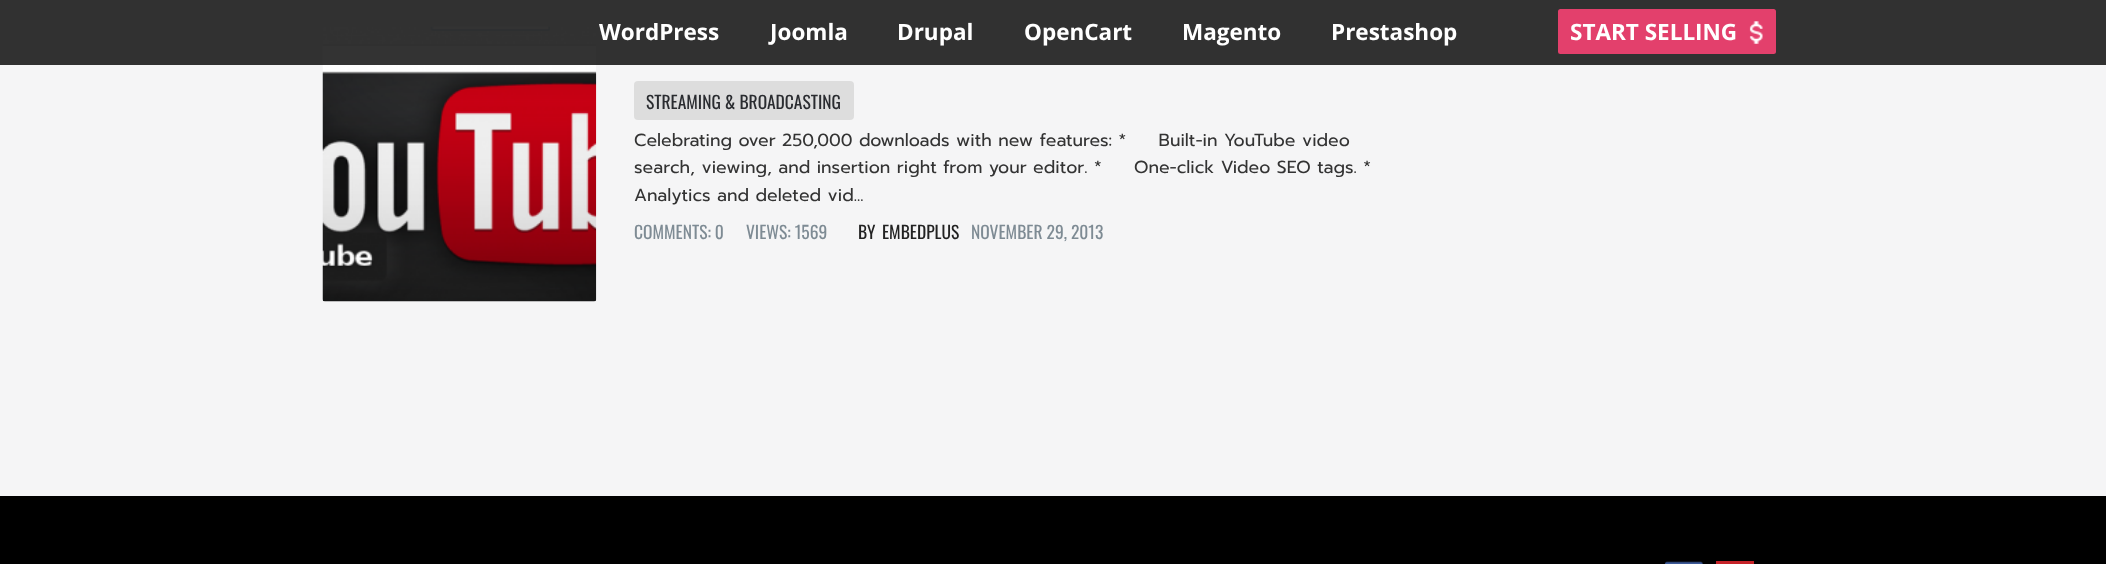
<svg xmlns="http://www.w3.org/2000/svg" xmlns:xlink="http://www.w3.org/1999/xlink" width="2106" height="564" viewBox="0 0 2106 564">
<style>
.cls-1{font:bold 22.5px Open Sans;fill:#ffffff}
.cls-2{font:17.5px Oswald;fill:#2a2c30}
.cls-3{font:17.5px Prompt;fill:#333333}
.cls-4{font:17.5px Oswald;fill:#7e8b94}
.cls-5{font:17.5px Oswald;fill:#222222}
</style>
<rect width="100%" height="100%" fill="#f5f5f6"/>
<image xlink:href="image1.png" x="322" y="26" width="275" height="276"/>
<rect fill="#000000" fill-opacity="0.8" x="0" y="0" width="2106" height="65"/>
<rect fill="#e3406c" x="1558" y="9" width="218" height="45" rx="2.5"/>
<image xlink:href="image0.png" x="1749" y="21" width="14" height="23"/>
<rect fill="#dddddd" x="634" y="81" width="220" height="39" rx="4"/>
<rect fill="#000000" x="0" y="496" width="2106" height="68"/>
<image xlink:href="image2.png" x="1664" y="561" width="39" height="3"/>
<rect fill="#c52228" x="1716" y="561" width="38" height="3"/>
<text class="cls-1" x="599" y="40">WordPress</text>
<text class="cls-1" x="770" y="40">Joomla</text>
<text class="cls-1" x="897" y="40">Drupal</text>
<text class="cls-1" x="1024" y="40">OpenCart</text>
<text class="cls-1" x="1182" y="40">Magento</text>
<text class="cls-1" x="1331" y="40">Prestashop</text>
<text class="cls-1" x="1570" y="40">START SELLING</text>
<text class="cls-2" x="646" y="109">STREAMING &amp; BROADCASTING</text>
<text class="cls-3" xml:space="preserve"><tspan x="634" y="146">Celebrating over 250,000 downloads with new features: *     Built-in YouTube video</tspan><tspan x="634" y="173">search, viewing, and insertion right from your editor. *     One-click Video SEO tags. *</tspan><tspan x="634" y="201">Analytics and deleted vid...</tspan></text>
<text class="cls-4" x="634" y="239">COMMENTS: 0</text>
<text class="cls-4" x="746" y="239">VIEWS: 1569</text>
<text class="cls-5" x="858" y="239">BY</text>
<text class="cls-5" x="882" y="239">EMBEDPLUS</text>
<text class="cls-4" x="971" y="239">NOVEMBER 29, 2013</text>
</svg>
